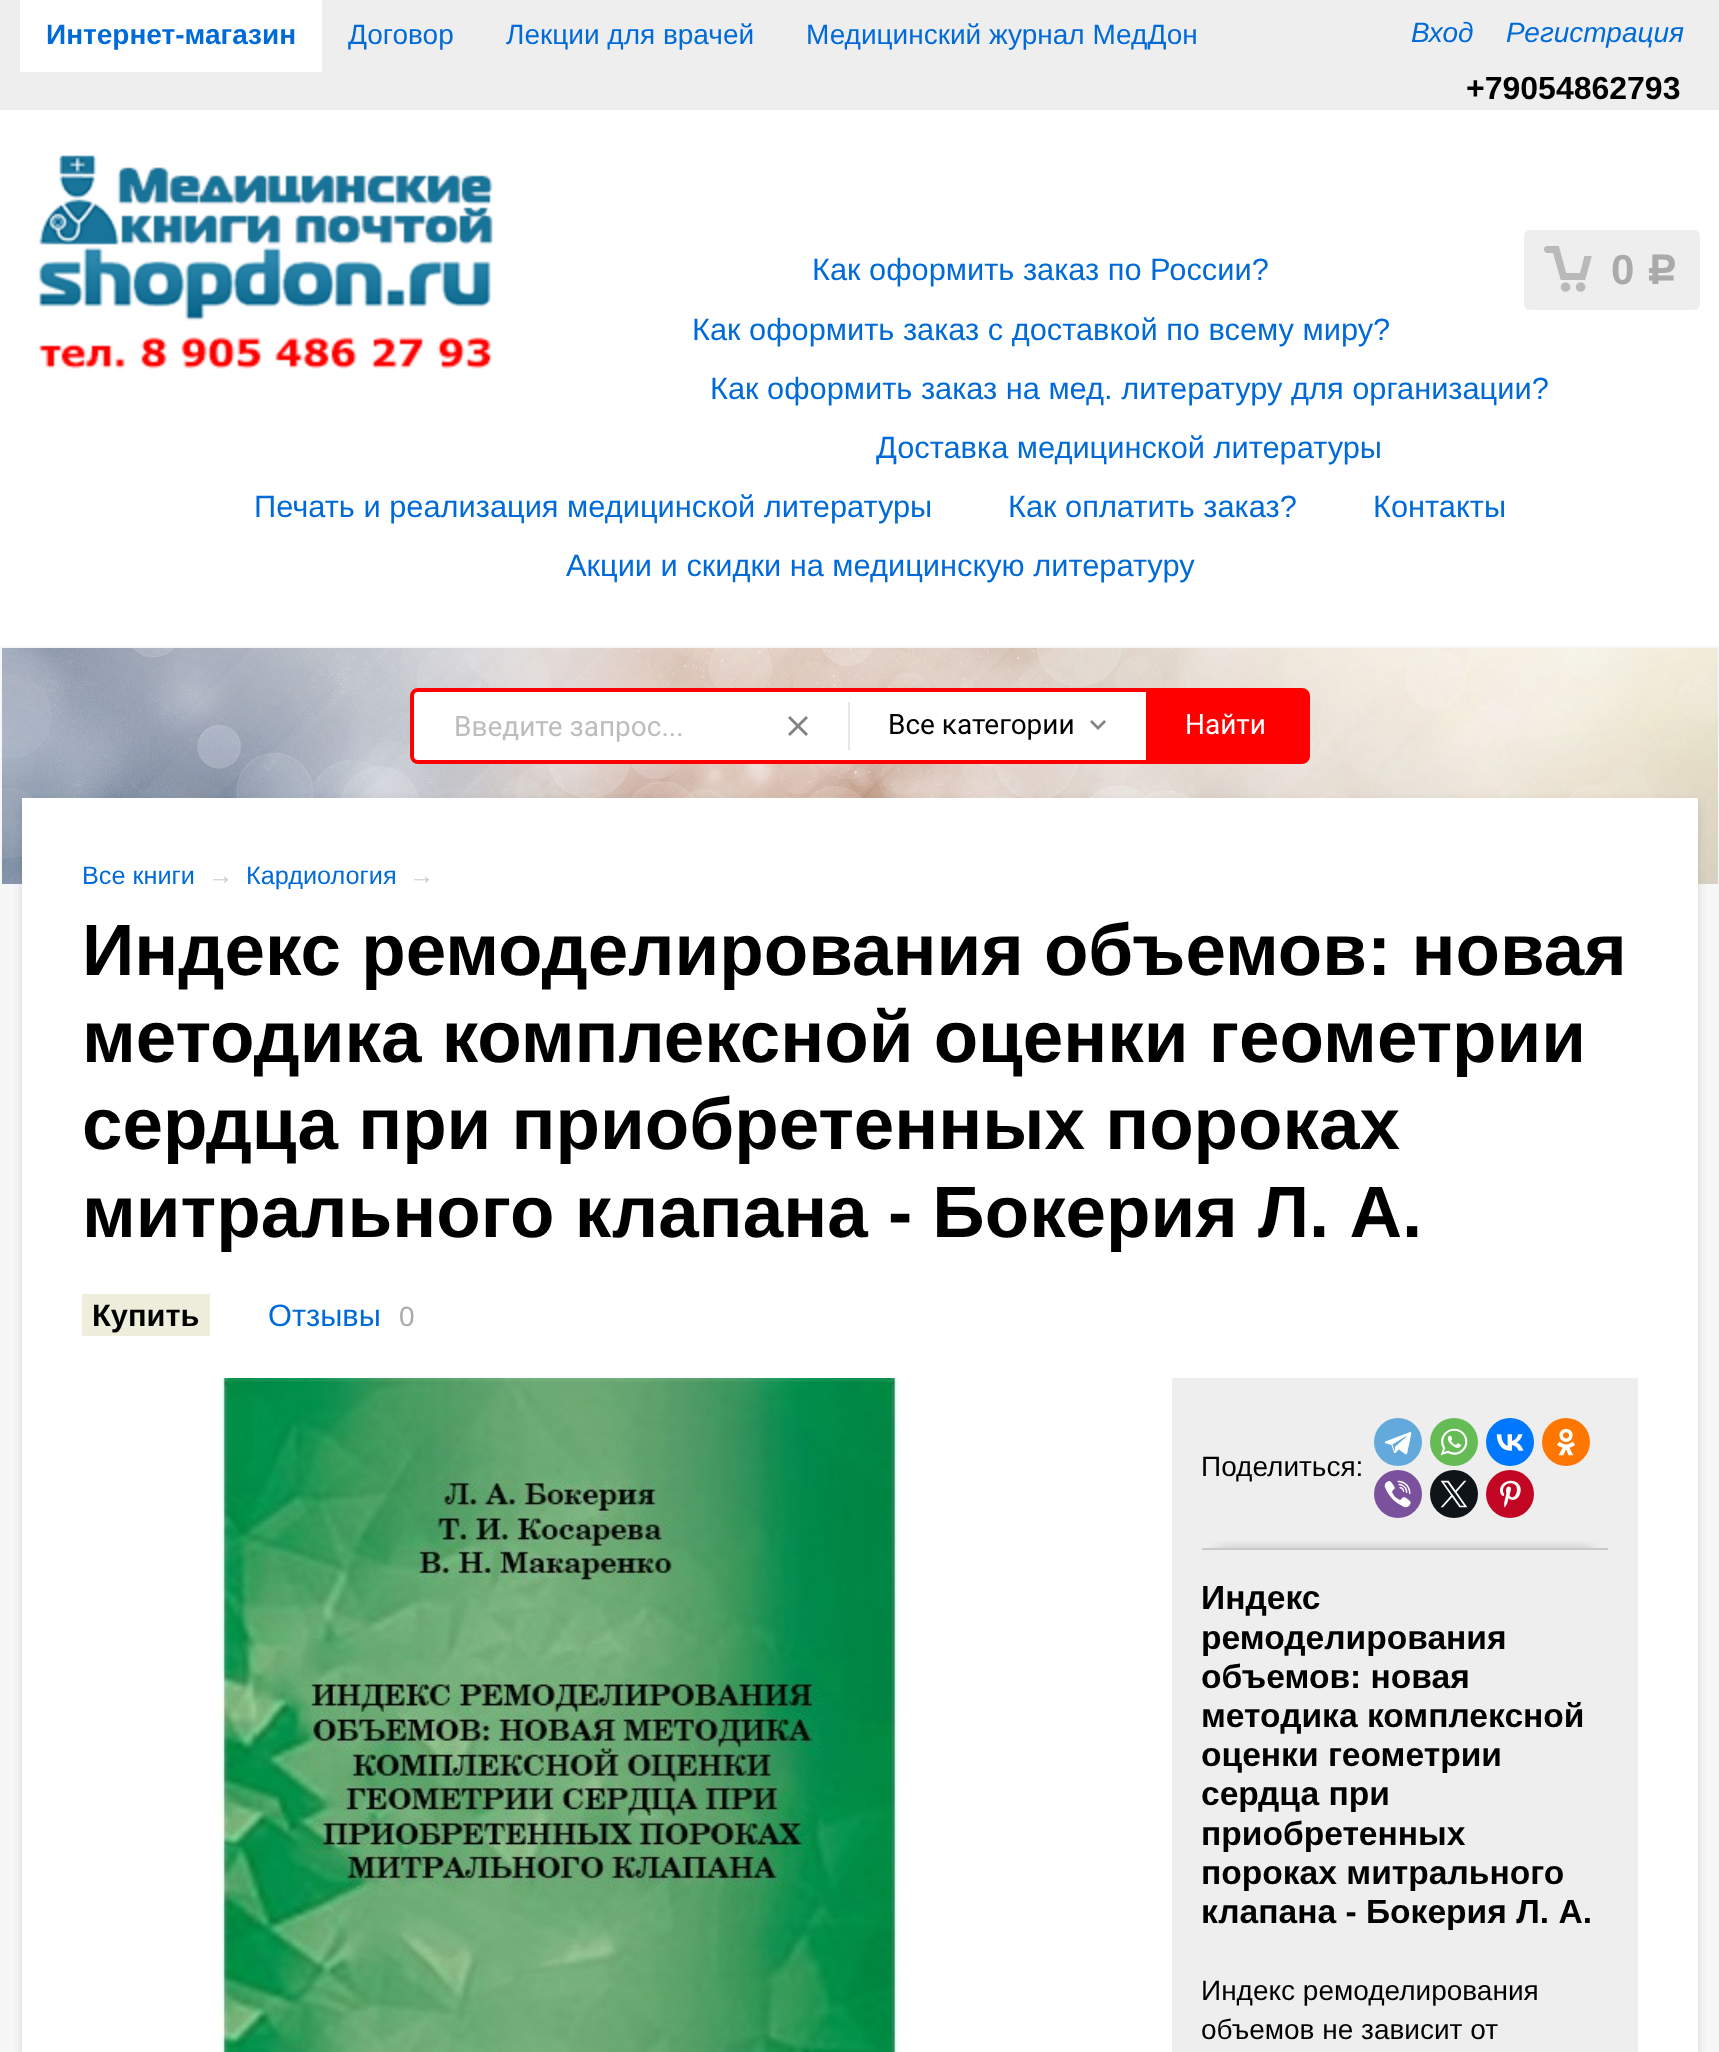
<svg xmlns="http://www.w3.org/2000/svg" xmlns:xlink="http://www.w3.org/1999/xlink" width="1719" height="2052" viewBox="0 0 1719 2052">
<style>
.cls-1{font:bold 28px Liberation Sans;fill:#006bd8}
.cls-2{font:28px Liberation Sans;fill:#006bd8}
.cls-3{font:italic 28px Liberation Sans;fill:#006bd8}
.cls-4{font:bold 32px Liberation Sans;fill:#000000}
.cls-5{font:bold 42px Liberation Sans;fill:#aaaaaa}
.cls-6{font:bold 42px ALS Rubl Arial;letter-spacing:2px;fill:#aaaaaa}
.cls-7{font:30.8px Liberation Sans;fill:#006bd8}
.cls-8{font:28px Roboto;fill:#bdbdbd}
.cls-9{font:28px Roboto;fill:#000000}
.cls-10{font:28px Roboto;fill:#ffffff}
.cls-11{font:25.25px Liberation Sans;fill:#006bd8}
.cls-12{font:25.25px Liberation Sans;fill:#cccccc}
.cls-13{font:bold 72.8px Liberation Sans;fill:#000000}
.cls-14{font:bold 30.8px Liberation Sans;fill:#000000}
.cls-15{font:28px Liberation Sans;fill:#aaaaaa}
.cls-16{font:28px Liberation Sans;fill:#000000}
.cls-17{font:bold 33.6px Liberation Sans;fill:#000000}
</style>
<defs>
<clipPath id="clip1"><rect x="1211" y="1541" width="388" height="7"/></clipPath>
</defs>
<rect width="100%" height="100%" fill="#f7f7f7"/>
<rect fill="#ffffff" x="0" y="110" width="1719" height="536"/>
<rect fill="#eeeeee" x="0" y="0" width="1719" height="110"/>
<rect fill="#ffffff" x="20" y="0" width="302" height="72"/>
<image xlink:href="image0.png" x="38" y="155" width="455" height="214"/>
<rect fill="#eeeeee" x="1524" y="230" width="176" height="80" rx="6"/>
<image xlink:href="image1.png" x="1544" y="246" width="48" height="46"/>
<image xlink:href="image2.png" x="2" y="648" width="1716" height="236"/>
<rect fill="#ffffff" stroke="#fe0000" stroke-width="4" x="412" y="690" width="896" height="72" rx="6"/>
<image xlink:href="image3.png" x="788" y="716" width="20" height="20"/>
<rect fill="#e7e7e7" x="848" y="702" width="2" height="48"/>
<image xlink:href="image4.png" x="1090" y="720" width="16" height="10"/>
<rect fill="#fe0000" x="1146" y="692" width="160" height="68"/>
<rect fill="#000000" fill-opacity="0.13" filter="blur(5px)" x="22" y="802" width="1676" height="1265"/>
<rect fill="#ffffff" x="22" y="798" width="1676" height="1254"/>
<rect fill="#eeeedd" x="82" y="1294" width="128" height="42"/>
<image xlink:href="image5.png" x="220" y="1378" width="679" height="674"/>
<rect fill="#eeeeee" x="1172" y="1378" width="466" height="674"/>
<circle fill="#64a9dc" cx="1398" cy="1442" r="24"/>
<image xlink:href="image6.png" x="1384" y="1432" width="28" height="23"/>
<circle fill="#65bc54" cx="1454" cy="1442" r="24"/>
<image xlink:href="image7.png" x="1440" y="1428" width="28" height="28"/>
<circle fill="#0077ff" cx="1510" cy="1442" r="24"/>
<image xlink:href="image8.png" x="1496" y="1434" width="28" height="17"/>
<circle fill="#ff7700" cx="1566" cy="1442" r="24"/>
<image xlink:href="image9.png" x="1557" y="1428" width="18" height="28"/>
<circle fill="#7b519d" cx="1398" cy="1494" r="24"/>
<image xlink:href="image10.png" x="1384" y="1480" width="27" height="28"/>
<circle fill="#0f1419" cx="1454" cy="1494" r="24"/>
<image xlink:href="image11.png" x="1440" y="1480" width="28" height="28"/>
<circle fill="#c20724" cx="1510" cy="1494" r="24"/>
<image xlink:href="image12.png" x="1500" y="1480" width="21" height="28"/>
<g clip-path="url(#clip1)">
<rect fill="#000000" fill-opacity="0.7" filter="blur(8px)" x="1218" y="1556" width="374" height="352"/>
</g>
<rect fill="#cacaca" x="1202" y="1548" width="406" height="2"/>
<text class="cls-1" x="46" y="44">Интернет-магазин</text>
<text class="cls-2" x="348" y="44">Договор</text>
<text class="cls-2" x="506" y="44">Лекции для врачей</text>
<text class="cls-2" x="806" y="44">Медицинский журнал МедДон</text>
<text class="cls-3" x="1411" y="42">Вход</text>
<text class="cls-3" x="1506" y="42">Регистрация</text>
<text class="cls-4" x="1466" y="99">+79054862793</text>
<text class="cls-5" x="1611" y="284">0</text>
<text class="cls-6" x="1646" y="284">Р</text>
<text class="cls-7" x="812" y="280">Как оформить заказ по России?</text>
<text class="cls-7" x="692" y="340">Как оформить заказ с доставкой по всему миру?</text>
<text class="cls-7" x="710" y="399">Как оформить заказ на мед. литературу для организации?</text>
<text class="cls-7" x="876" y="458">Доставка медицинской литературы</text>
<text class="cls-7" x="254" y="517">Печать и реализация медицинской литературы</text>
<text class="cls-7" x="1008" y="517">Как оплатить заказ?</text>
<text class="cls-7" x="1373" y="517">Контакты</text>
<text class="cls-7" x="566" y="576">Акции и скидки на медицинскую литературу</text>
<text class="cls-8" x="454" y="736">Введите запрос...</text>
<text class="cls-9" x="888" y="734">Все категории</text>
<text class="cls-10" x="1185" y="734">Найти</text>
<text class="cls-11" x="82" y="884">Все книги</text>
<text class="cls-12" x="208" y="884">→</text>
<text class="cls-11" x="246" y="884">Кардиология</text>
<text class="cls-12" x="409" y="884">→</text>
<text class="cls-13"><tspan x="82" y="975">Индекс ремоделирования объемов: новая</tspan><tspan x="82" y="1062">методика комплексной оценки геометрии</tspan><tspan x="82" y="1149">сердца при приобретенных пороках</tspan><tspan x="82" y="1237">митрального клапана - Бокерия Л. А.</tspan></text>
<text class="cls-14" x="92" y="1326">Купить</text>
<text class="cls-7" x="268" y="1326">Отзывы</text>
<text class="cls-15" x="399" y="1326">0</text>
<text class="cls-16" x="1201" y="1476">Поделиться:</text>
<text class="cls-17"><tspan x="1201" y="1609">Индекс</tspan><tspan x="1201" y="1649">ремоделирования</tspan><tspan x="1201" y="1688">объемов: новая</tspan><tspan x="1201" y="1727">методика комплексной</tspan><tspan x="1201" y="1766">оценки геометрии</tspan><tspan x="1201" y="1805">сердца при</tspan><tspan x="1201" y="1845">приобретенных</tspan><tspan x="1201" y="1884">пороках митрального</tspan><tspan x="1201" y="1923">клапана - Бокерия Л. А.</tspan></text>
<text class="cls-16"><tspan x="1201" y="2000">Индекс ремоделирования</tspan><tspan x="1201" y="2039">объемов не зависит от</tspan></text>
</svg>
